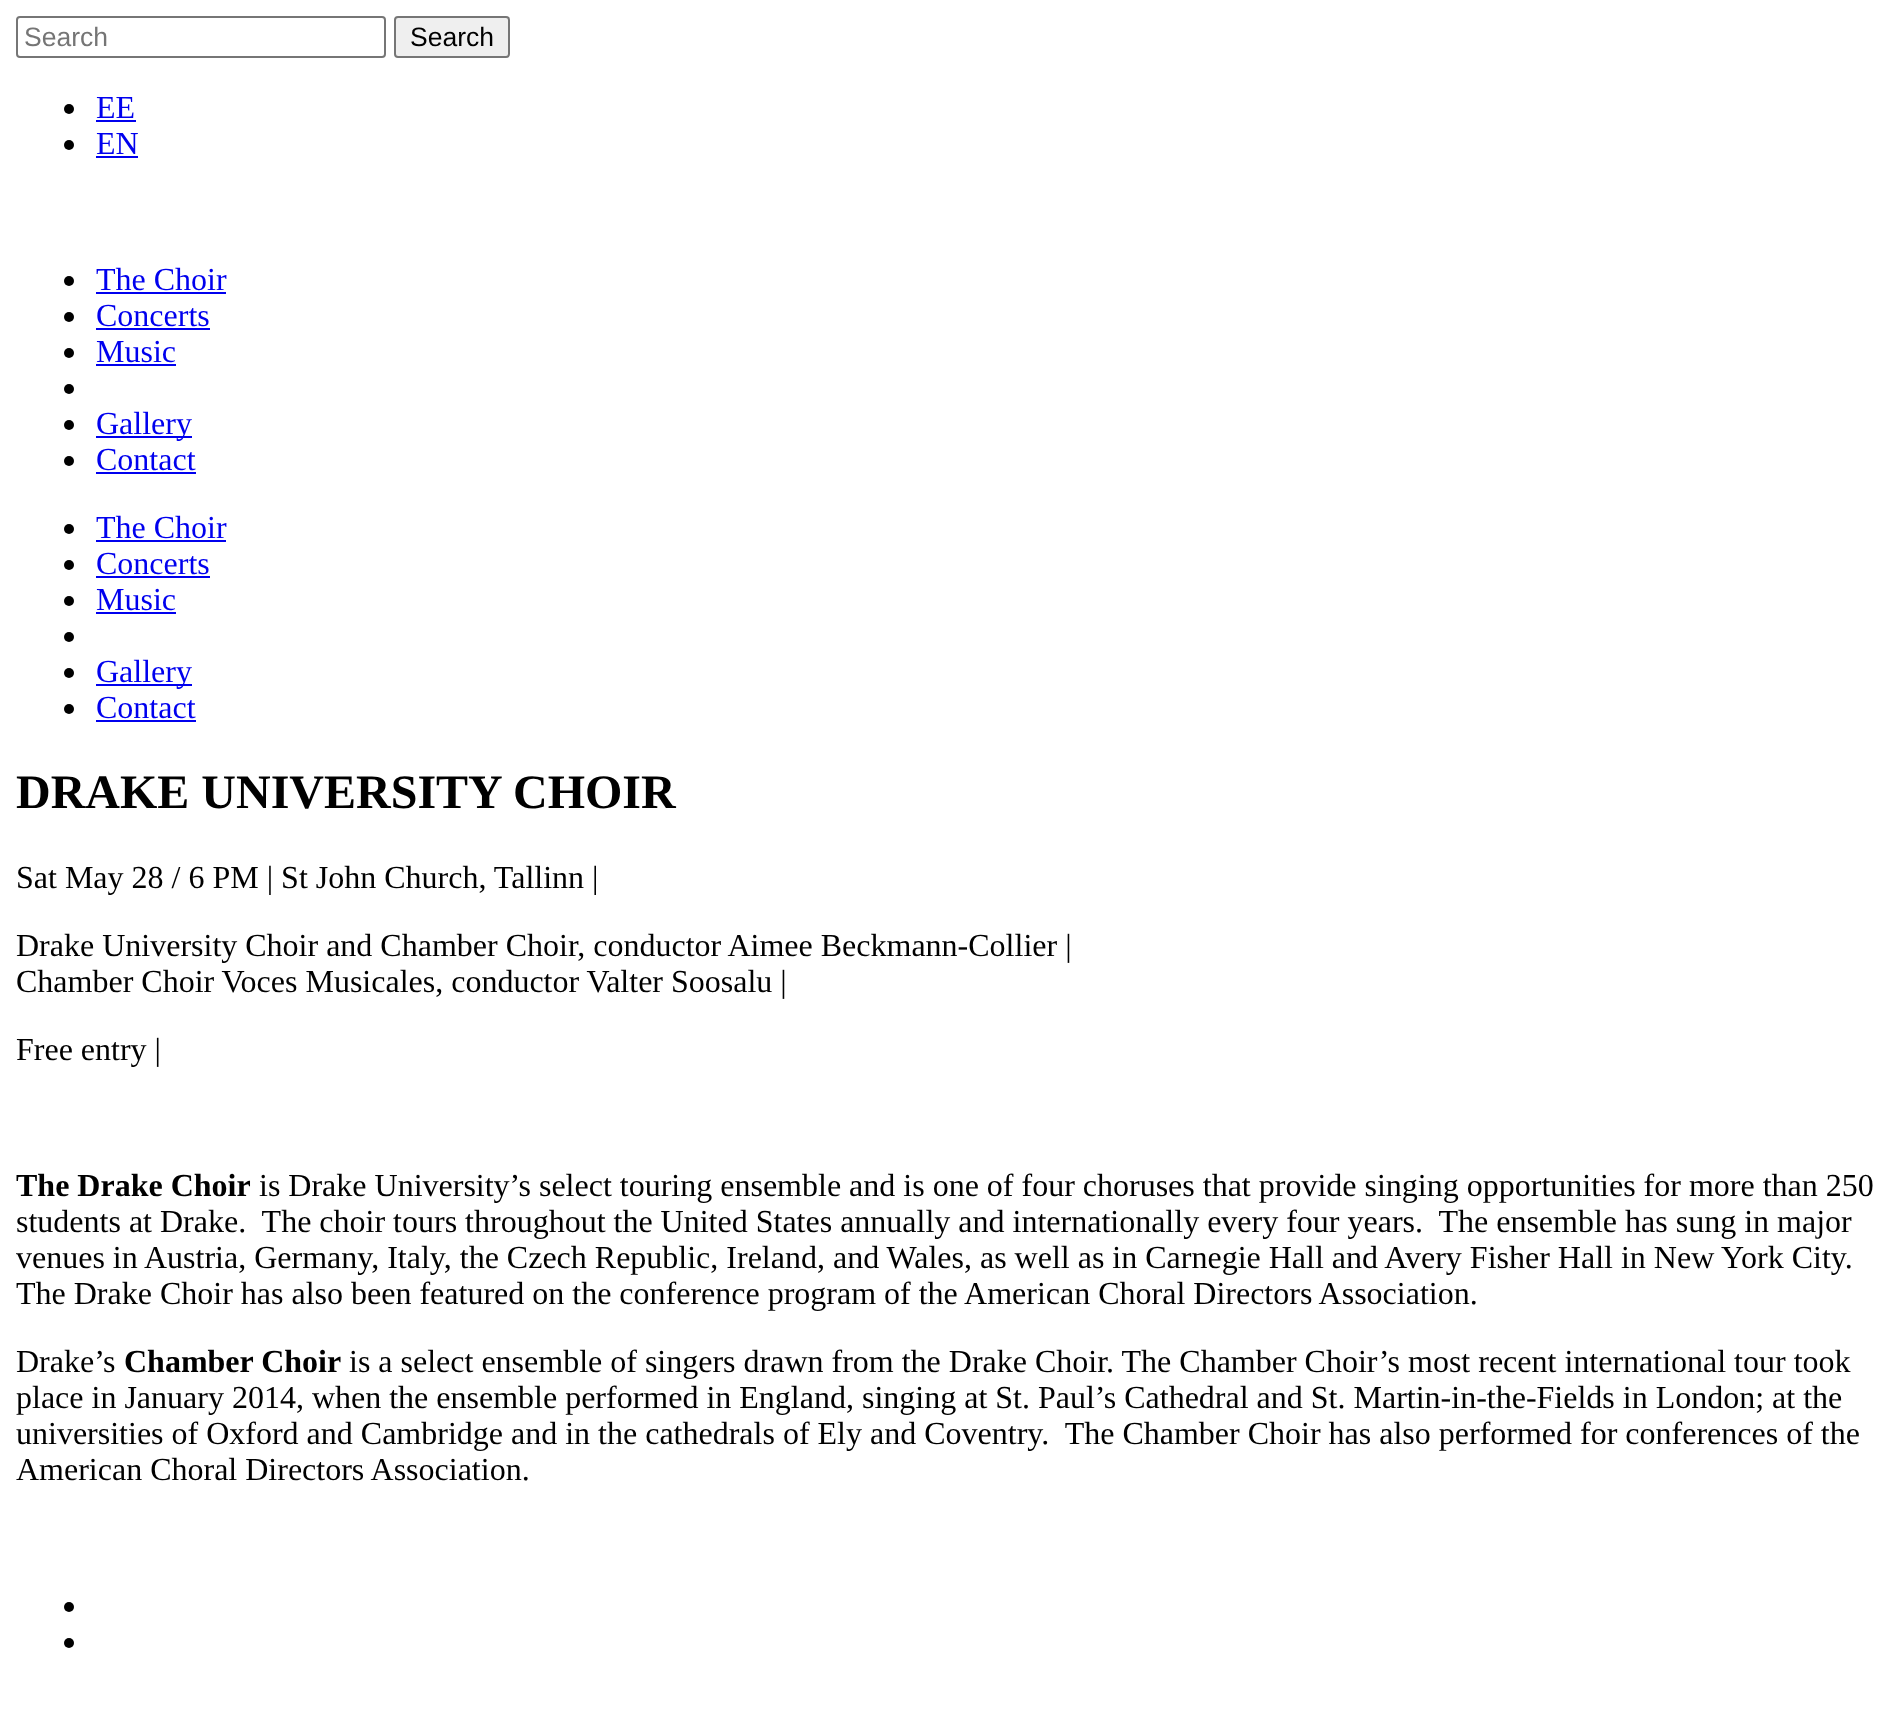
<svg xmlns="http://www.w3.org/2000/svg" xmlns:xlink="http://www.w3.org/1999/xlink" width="1892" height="1736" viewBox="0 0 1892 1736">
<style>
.cls-1{font:26.5px Liberation Sans;fill:#757575}
.cls-2{font:26.5px Liberation Sans;fill:#000000}
.cls-3{font:32px Liberation Serif;fill:#0000ee}
.cls-4{font:bold 48px Liberation Serif;fill:#000000}
.cls-5{font:32px Liberation Serif;fill:#000000}
.cls-6{font:bold 32px Liberation Serif;fill:#000000}
</style>
<rect width="100%" height="100%" fill="#ffffff"/>
<rect fill="none" stroke="#767676" stroke-width="2" x="17" y="17" width="368" height="40" rx="3"/>
<rect fill="#efefef" stroke="#767676" stroke-width="2" x="395" y="17" width="114" height="40" rx="3"/>
<circle fill="#000000" cx="69" cy="109" r="5"/>
<rect fill="#0000ee" x="96" y="120" width="40" height="2"/>
<circle fill="#000000" cx="69" cy="145" r="5"/>
<rect fill="#0000ee" x="96" y="156" width="42" height="2"/>
<circle fill="#000000" cx="69" cy="281" r="5"/>
<rect fill="#0000ee" x="96" y="292" width="130" height="2"/>
<circle fill="#000000" cx="69" cy="317" r="5"/>
<rect fill="#0000ee" x="96" y="328" width="114" height="2"/>
<circle fill="#000000" cx="69" cy="353" r="5"/>
<rect fill="#0000ee" x="96" y="364" width="80" height="2"/>
<circle fill="#000000" cx="69" cy="389" r="5"/>
<circle fill="#000000" cx="69" cy="425" r="5"/>
<rect fill="#0000ee" x="96" y="436" width="96" height="2"/>
<circle fill="#000000" cx="69" cy="461" r="5"/>
<rect fill="#0000ee" x="96" y="472" width="100" height="2"/>
<circle fill="#000000" cx="69" cy="529" r="5"/>
<rect fill="#0000ee" x="96" y="540" width="130" height="2"/>
<circle fill="#000000" cx="69" cy="565" r="5"/>
<rect fill="#0000ee" x="96" y="576" width="114" height="2"/>
<circle fill="#000000" cx="69" cy="601" r="5"/>
<rect fill="#0000ee" x="96" y="612" width="80" height="2"/>
<circle fill="#000000" cx="69" cy="637" r="5"/>
<circle fill="#000000" cx="69" cy="673" r="5"/>
<rect fill="#0000ee" x="96" y="684" width="96" height="2"/>
<circle fill="#000000" cx="69" cy="709" r="5"/>
<rect fill="#0000ee" x="96" y="720" width="100" height="2"/>
<circle fill="#000000" cx="69" cy="1607" r="5"/>
<circle fill="#000000" cx="69" cy="1643" r="5"/>
<text class="cls-1" x="24" y="46">Search</text>
<text class="cls-2" x="410" y="46">Search</text>
<text class="cls-3"><tspan x="96" y="118">EE</tspan><tspan x="96" y="154">EN</tspan></text>
<text class="cls-3"><tspan x="96" y="290">The Choir</tspan><tspan x="96" y="326">Concerts</tspan><tspan x="96" y="362">Music</tspan></text>
<text class="cls-3"><tspan x="96" y="434">Gallery</tspan><tspan x="96" y="470">Contact</tspan></text>
<text class="cls-3"><tspan x="96" y="538">The Choir</tspan><tspan x="96" y="574">Concerts</tspan><tspan x="96" y="610">Music</tspan></text>
<text class="cls-3"><tspan x="96" y="682">Gallery</tspan><tspan x="96" y="718">Contact</tspan></text>
<text class="cls-4" x="16" y="808">DRAKE UNIVERSITY CHOIR</text>
<text class="cls-5" x="16" y="888">Sat May 28 / 6 PM | St John Church, Tallinn |</text>
<text class="cls-5"><tspan x="16" y="956">Drake University Choir and Chamber Choir, conductor Aimee Beckmann-Collier |</tspan><tspan x="16" y="992">Chamber Choir Voces Musicales, conductor Valter Soosalu |</tspan></text>
<text class="cls-5" x="16" y="1060">Free entry |</text>
<text class="cls-6" x="16" y="1196">The Drake Choir</text>
<text class="cls-5" x="259" y="1196">is Drake University’s select touring ensemble and is one of four choruses that provide singing opportunities for more than 250</text>
<text class="cls-5" xml:space="preserve"><tspan x="16" y="1232">students at Drake.  The choir tours throughout the United States annually and internationally every four years.  The ensemble has sung in major</tspan><tspan x="16" y="1268">venues in Austria, Germany, Italy, the Czech Republic, Ireland, and Wales, as well as in Carnegie Hall and Avery Fisher Hall in New York City.</tspan><tspan x="16" y="1304">The Drake Choir has also been featured on the conference program of the American Choral Directors Association.</tspan></text>
<text class="cls-5" x="16" y="1372">Drake’s</text>
<text class="cls-6" x="124" y="1372">Chamber Choir</text>
<text class="cls-5" x="349" y="1372">is a select ensemble of singers drawn from the Drake Choir. The Chamber Choir’s most recent international tour took</text>
<text class="cls-5" xml:space="preserve"><tspan x="16" y="1408">place in January 2014, when the ensemble performed in England, singing at St. Paul’s Cathedral and St. Martin-in-the-Fields in London; at the</tspan><tspan x="16" y="1444">universities of Oxford and Cambridge and in the cathedrals of Ely and Coventry.  The Chamber Choir has also performed for conferences of the</tspan><tspan x="16" y="1480">American Choral Directors Association.</tspan></text>
</svg>
